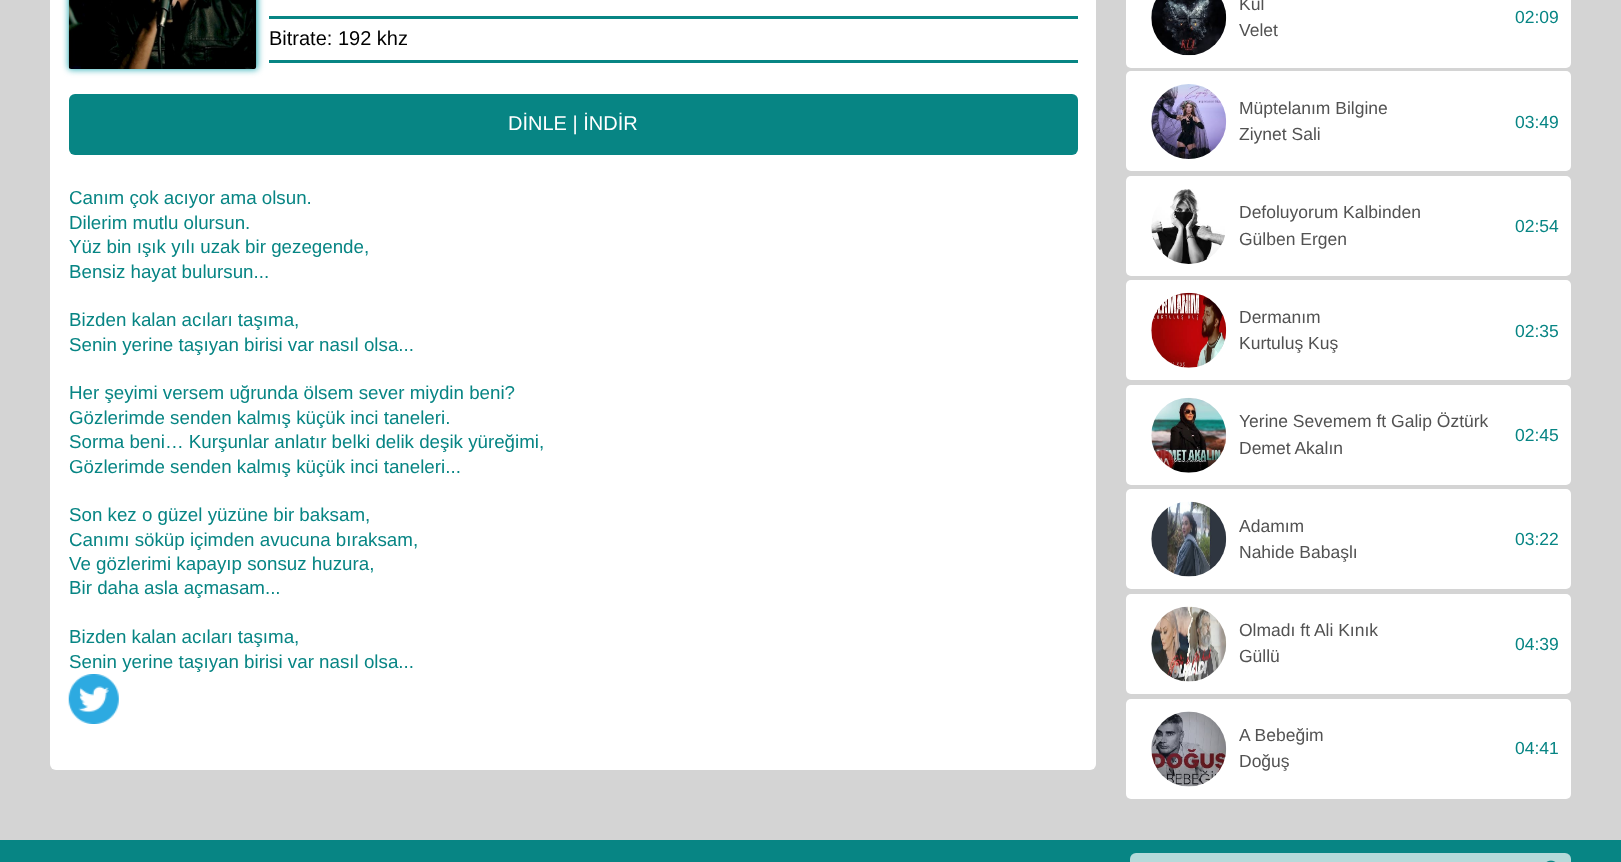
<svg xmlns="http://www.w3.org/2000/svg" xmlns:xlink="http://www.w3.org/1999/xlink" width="1621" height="862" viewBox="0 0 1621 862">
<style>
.cls-1{font:20px Liberation Sans;fill:#000000}
.cls-2{font:20px Liberation Sans;fill:#ffffff}
.cls-3{font:18.75px Liberation Sans;fill:#078584}
.cls-4{font:17.5px Liberation Sans;fill:#525252}
.cls-5{font:17.5px Liberation Sans;fill:#078584}
</style>
<rect width="100%" height="100%" fill="#d4d4d4"/>
<rect fill="#ffffff" x="50" y="-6" width="1046" height="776" rx="6"/>
<rect fill="#009ea8" fill-opacity="0.75" filter="blur(3px)" x="68" y="-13" width="190" height="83" rx="4"/>
<image xlink:href="image0.png" x="68" y="0" width="189" height="69"/>
<rect fill="#078584" x="269" y="16" width="809" height="3"/>
<rect fill="#078584" x="269" y="60" width="809" height="3"/>
<rect fill="#078584" x="69" y="94" width="1009" height="61" rx="6"/>
<image xlink:href="image1.png" x="68" y="674" width="51" height="50"/>
<rect fill="#ffffff" x="1126" y="-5" width="445" height="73" rx="5"/>
<image xlink:href="image2.png" x="1151" y="0" width="76" height="56"/>
<rect fill="#ffffff" x="1126" y="71" width="445" height="100" rx="5"/>
<image xlink:href="image3.png" x="1151" y="84" width="76" height="75"/>
<rect fill="#ffffff" x="1126" y="176" width="445" height="100" rx="5"/>
<image xlink:href="image4.png" x="1151" y="189" width="74" height="75"/>
<rect fill="#ffffff" x="1126" y="280" width="445" height="100" rx="5"/>
<image xlink:href="image5.png" x="1151" y="292" width="76" height="76"/>
<rect fill="#ffffff" x="1126" y="385" width="445" height="100" rx="5"/>
<image xlink:href="image6.png" x="1151" y="397" width="76" height="76"/>
<rect fill="#ffffff" x="1126" y="489" width="445" height="100" rx="5"/>
<image xlink:href="image7.png" x="1151" y="501" width="76" height="76"/>
<rect fill="#ffffff" x="1126" y="594" width="445" height="100" rx="5"/>
<image xlink:href="image8.png" x="1151" y="606" width="76" height="76"/>
<rect fill="#ffffff" x="1126" y="699" width="445" height="100" rx="5"/>
<image xlink:href="image9.png" x="1151" y="711" width="76" height="76"/>
<rect fill="#078584" x="0" y="840" width="1621" height="22"/>
<rect fill="#b5dada" x="1130" y="853" width="441" height="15" rx="6"/>
<image xlink:href="image10.png" x="1546" y="860" width="10" height="2"/>
<text class="cls-1" x="269" y="45">Bitrate: 192 khz</text>
<text class="cls-2" x="508" y="130">DİNLE | İNDİR</text>
<text class="cls-3"><tspan x="69" y="204">Canım çok acıyor ama olsun.</tspan><tspan x="69" y="229">Dilerim mutlu olursun.</tspan><tspan x="69" y="253">Yüz bin ışık yılı uzak bir gezegende,</tspan><tspan x="69" y="278">Bensiz hayat bulursun...</tspan></text>
<text class="cls-3"><tspan x="69" y="326">Bizden kalan acıları taşıma,</tspan><tspan x="69" y="351">Senin yerine taşıyan birisi var nasıl olsa...</tspan></text>
<text class="cls-3"><tspan x="69" y="399">Her şeyimi versem uğrunda ölsem sever miydin beni?</tspan><tspan x="69" y="424">Gözlerimde senden kalmış küçük inci taneleri.</tspan><tspan x="69" y="448">Sorma beni… Kurşunlar anlatır belki delik deşik yüreğimi,</tspan><tspan x="69" y="473">Gözlerimde senden kalmış küçük inci taneleri...</tspan></text>
<text class="cls-3"><tspan x="69" y="521">Son kez o güzel yüzüne bir baksam,</tspan><tspan x="69" y="546">Canımı söküp içimden avucuna bıraksam,</tspan><tspan x="69" y="570">Ve gözlerimi kapayıp sonsuz huzura,</tspan><tspan x="69" y="594">Bir daha asla açmasam...</tspan></text>
<text class="cls-3"><tspan x="69" y="643">Bizden kalan acıları taşıma,</tspan><tspan x="69" y="668">Senin yerine taşıyan birisi var nasıl olsa...</tspan></text>
<text class="cls-4"><tspan x="1239" y="10">Kül</tspan><tspan x="1239" y="36">Velet</tspan></text>
<text class="cls-5" x="1515" y="23">02:09</text>
<text class="cls-4"><tspan x="1239" y="114">Müptelanım Bilgine</tspan><tspan x="1239" y="140">Ziynet Sali</tspan></text>
<text class="cls-5" x="1515" y="128">03:49</text>
<text class="cls-4"><tspan x="1239" y="218">Defoluyorum Kalbinden</tspan><tspan x="1239" y="245">Gülben Ergen</tspan></text>
<text class="cls-5" x="1515" y="232">02:54</text>
<text class="cls-4"><tspan x="1239" y="323">Dermanım</tspan><tspan x="1239" y="349">Kurtuluş Kuş</tspan></text>
<text class="cls-5" x="1515" y="337">02:35</text>
<text class="cls-4"><tspan x="1239" y="427">Yerine Sevemem ft Galip Öztürk</tspan><tspan x="1239" y="454">Demet Akalın</tspan></text>
<text class="cls-5" x="1515" y="441">02:45</text>
<text class="cls-4"><tspan x="1239" y="532">Adamım</tspan><tspan x="1239" y="558">Nahide Babaşlı</tspan></text>
<text class="cls-5" x="1515" y="545">03:22</text>
<text class="cls-4"><tspan x="1239" y="636">Olmadı ft Ali Kınık</tspan><tspan x="1239" y="662">Güllü</tspan></text>
<text class="cls-5" x="1515" y="650">04:39</text>
<text class="cls-4"><tspan x="1239" y="741">A Bebeğim</tspan><tspan x="1239" y="767">Doğuş</tspan></text>
<text class="cls-5" x="1515" y="754">04:41</text>
</svg>
